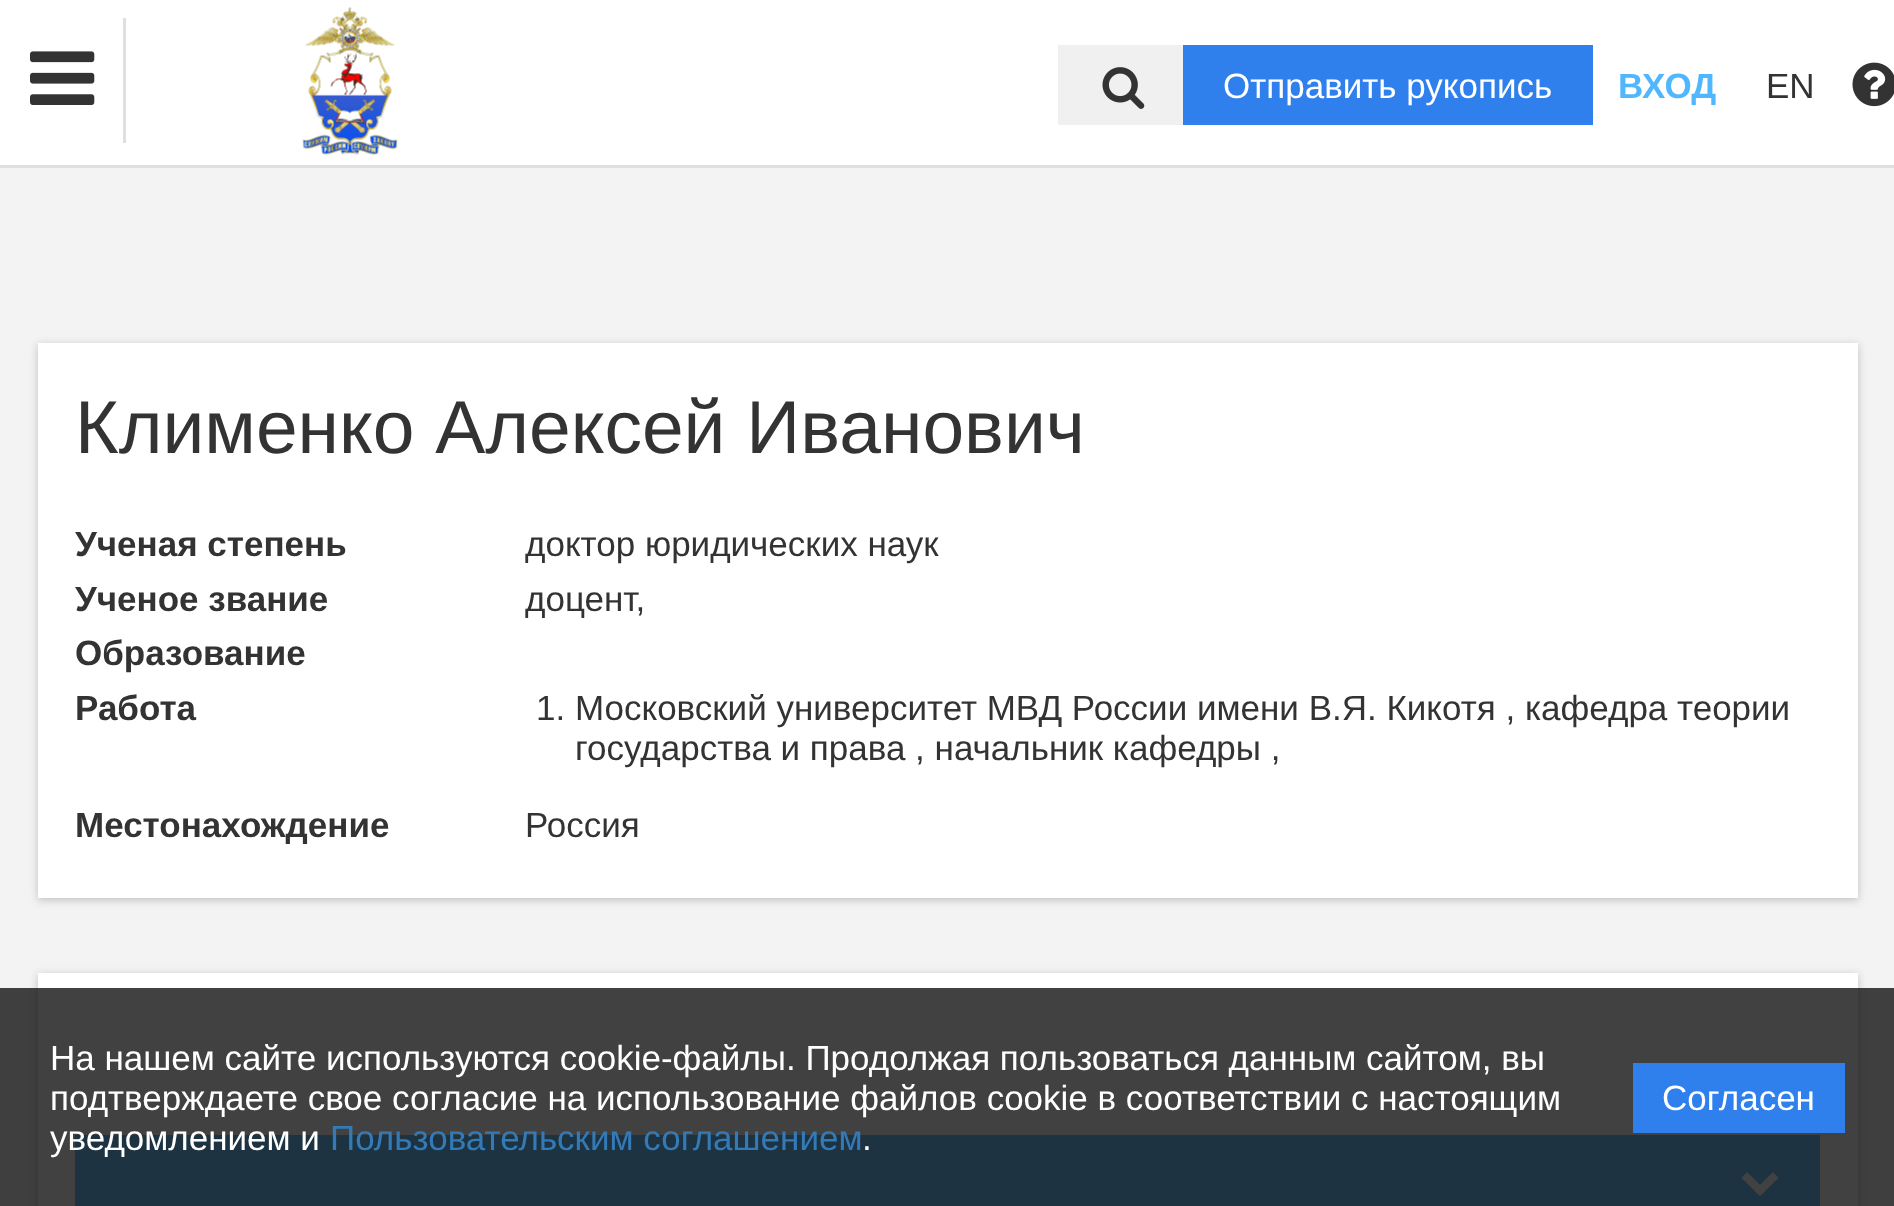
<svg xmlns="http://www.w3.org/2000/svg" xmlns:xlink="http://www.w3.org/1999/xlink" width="1894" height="1206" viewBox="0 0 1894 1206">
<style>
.cls-1{font:35px Liberation Sans;fill:#ffffff}
.cls-2{font:bold 35px Liberation Sans;fill:#50b7ff}
.cls-3{font:35px Liberation Sans;fill:#333333}
.cls-4{font:75px Liberation Sans;fill:#333333}
.cls-5{font:bold 35px Liberation Sans;fill:#333333}
.cls-6{font:35px Liberation Sans;fill:#337ab7}
</style>
<rect width="100%" height="100%" fill="#f4f3f3"/>
<rect fill="#ffffff" x="0" y="0" width="1894" height="165"/>
<rect fill="#dfdfdf" x="0" y="165" width="1894" height="3"/>
<rect fill="#dfdfdf" x="123" y="18" width="3" height="125"/>
<image xlink:href="image0.png" x="30" y="51" width="65" height="54"/>
<image xlink:href="image1.png" x="302" y="7" width="96" height="148"/>
<rect fill="#f0f0f0" x="1058" y="45" width="125" height="80"/>
<image xlink:href="image2.png" x="1102" y="67" width="43" height="42"/>
<rect fill="#2f80ed" x="1183" y="45" width="410" height="80"/>
<image xlink:href="image3.png" x="1852" y="62" width="42" height="45"/>
<rect fill="#bfbfbf" filter="blur(4px)" x="38" y="345" width="1820" height="555"/>
<rect fill="#ffffff" x="38" y="343" width="1820" height="555"/>
<rect fill="#bfbfbf" filter="blur(4px)" x="38" y="975" width="1820" height="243"/>
<rect fill="#ffffff" x="38" y="973" width="1820" height="233"/>
<rect fill="none" stroke="#50b7ff" stroke-width="3" x="76.5" y="1136.5" width="1742" height="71"/>
<rect fill="#50b7ff" x="78" y="1138" width="1739" height="68"/>
<image xlink:href="image4.png" x="1742" y="1172" width="36" height="24"/>
<rect fill="#121212" fill-opacity="0.8" x="0" y="988" width="1894" height="218"/>
<rect fill="#2f80ed" x="1633" y="1063" width="212" height="70"/>
<text class="cls-1" x="1223" y="98">Отправить рукопись</text>
<text class="cls-2" x="1618" y="98">ВХОД</text>
<text class="cls-3" x="1766" y="98">EN</text>
<text class="cls-4" x="75" y="453">Клименко Алексей Иванович</text>
<text class="cls-5" x="75" y="556">Ученая степень</text>
<text class="cls-3" x="525" y="556">доктор юридических наук</text>
<text class="cls-5" x="75" y="611">Ученое звание</text>
<text class="cls-3" x="525" y="611">доцент,</text>
<text class="cls-5"><tspan x="75" y="665">Образование</tspan><tspan x="75" y="720">Работа</tspan></text>
<text class="cls-3" x="536" y="720">1. Московский университет МВД России имени В.Я. Кикотя , кафедра теории</text>
<text class="cls-3" x="575" y="760">государства и права , начальник кафедры ,</text>
<text class="cls-5" x="75" y="837">Местонахождение</text>
<text class="cls-3" x="525" y="837">Россия</text>
<text class="cls-1"><tspan x="50" y="1070">На нашем сайте используются cookie-файлы. Продолжая пользоваться данным сайтом, вы</tspan><tspan x="50" y="1110">подтверждаете свое согласие на использование файлов cookie в соответствии с настоящим</tspan><tspan x="50" y="1150">уведомлением и</tspan></text>
<text class="cls-6" x="330" y="1150">Пользовательским соглашением</text>
<text class="cls-1" x="862" y="1150">.</text>
<text class="cls-1" x="1662" y="1110">Согласен</text>
</svg>
